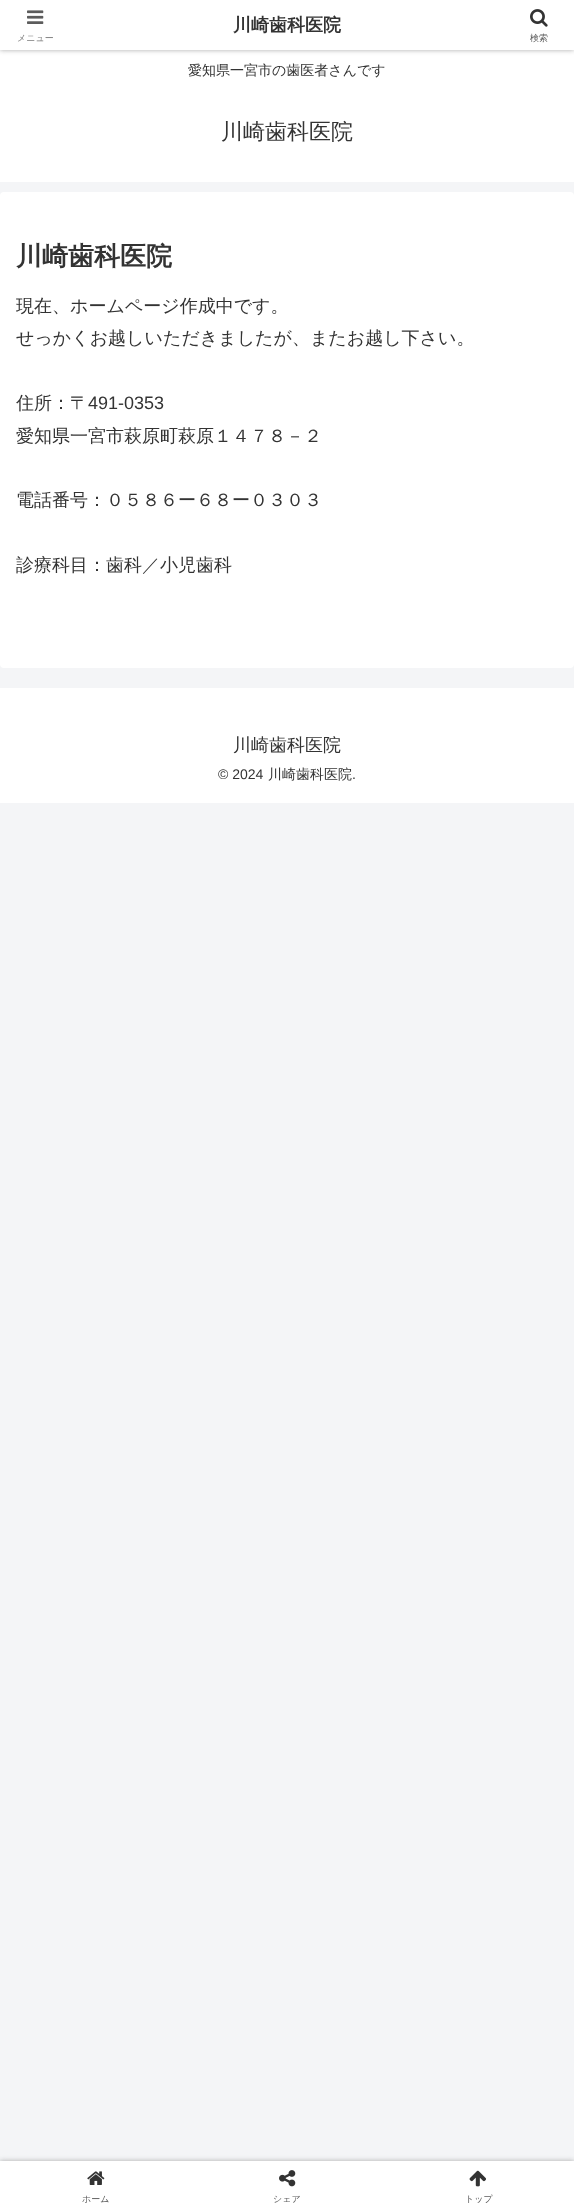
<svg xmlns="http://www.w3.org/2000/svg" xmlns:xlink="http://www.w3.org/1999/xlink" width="574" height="2211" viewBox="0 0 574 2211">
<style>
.cls-1{font:bold 18px WenQuanYi Zen Hei;fill:#333333}
.cls-2{font:500 9px WenQuanYi Zen Hei;fill:#7c7c7c}
.cls-3{font:500 9px WenQuanYi Zen Hei;fill:#5c5c5c}
.cls-4{font:500 14px WenQuanYi Zen Hei;fill:#333333}
.cls-5{font:500 22px WenQuanYi Zen Hei;fill:#333333}
.cls-6{font:bold 26px WenQuanYi Zen Hei;fill:#333333}
.cls-7{font:500 18px WenQuanYi Zen Hei;fill:#333333}
.cls-8{font:18px Liberation Sans;fill:#333333}
.cls-9{font:14px Liberation Sans;fill:#333333}
</style>
<rect width="100%" height="100%" fill="#f4f5f7"/>
<rect fill="#ffffff" x="0" y="50" width="574" height="132"/>
<rect fill="#a9a9a9" filter="blur(2.5px)" x="0" y="0" width="574" height="50"/>
<rect fill="#ffffff" x="0" y="0" width="574" height="50"/>
<image xlink:href="image0.png" x="27" y="10" width="17" height="14"/>
<image xlink:href="image1.png" x="530" y="9" width="18" height="18"/>
<rect fill="#ffffff" x="0" y="192" width="574" height="476" rx="4"/>
<rect fill="#ffffff" x="0" y="688" width="574" height="115"/>
<rect fill="#a9a9a9" filter="blur(2.5px)" x="0" y="2161" width="574" height="50"/>
<rect fill="#ffffff" x="0" y="2161" width="574" height="50"/>
<image xlink:href="image2.png" x="87" y="2171" width="18" height="14"/>
<image xlink:href="image3.png" x="279" y="2170" width="17" height="17"/>
<image xlink:href="image4.png" x="469" y="2170" width="17" height="17"/>
<text class="cls-1" x="233" y="31">川崎歯科医院</text>
<text class="cls-2" x="17" y="41">メニュー</text>
<text class="cls-3" x="530" y="41">検索</text>
<text class="cls-4" x="188" y="75">愛知県一宮市の歯医者さんです</text>
<text class="cls-5" x="221" y="139">川崎歯科医院</text>
<text class="cls-6" x="16" y="265">川崎歯科医院</text>
<text class="cls-7"><tspan x="16" y="312">現在、ホームページ作成中です。</tspan><tspan x="16" y="344">せっかくお越しいただきましたが、またお越し下さい。</tspan></text>
<text class="cls-7" x="16" y="409">住所：〒</text>
<text class="cls-8" x="88" y="409">491-0353</text>
<text class="cls-7" x="16" y="442">愛知県一宮市萩原町萩原１４７８－２</text>
<text class="cls-7" x="16" y="506">電話番号：０５８６ー６８ー０３０３</text>
<text class="cls-7" x="16" y="571">診療科目：歯科／小児歯科</text>
<text class="cls-7" x="233" y="751">川崎歯科医院</text>
<text class="cls-9" x="218" y="779">© 2024</text>
<text class="cls-4" x="268" y="779">川崎歯科医院</text>
<text class="cls-9" x="352" y="779">.</text>
<text class="cls-3" x="82" y="2202">ホーム</text>
<text class="cls-3" x="273" y="2202">シェア</text>
<text class="cls-3" x="465" y="2202">トップ</text>
</svg>
